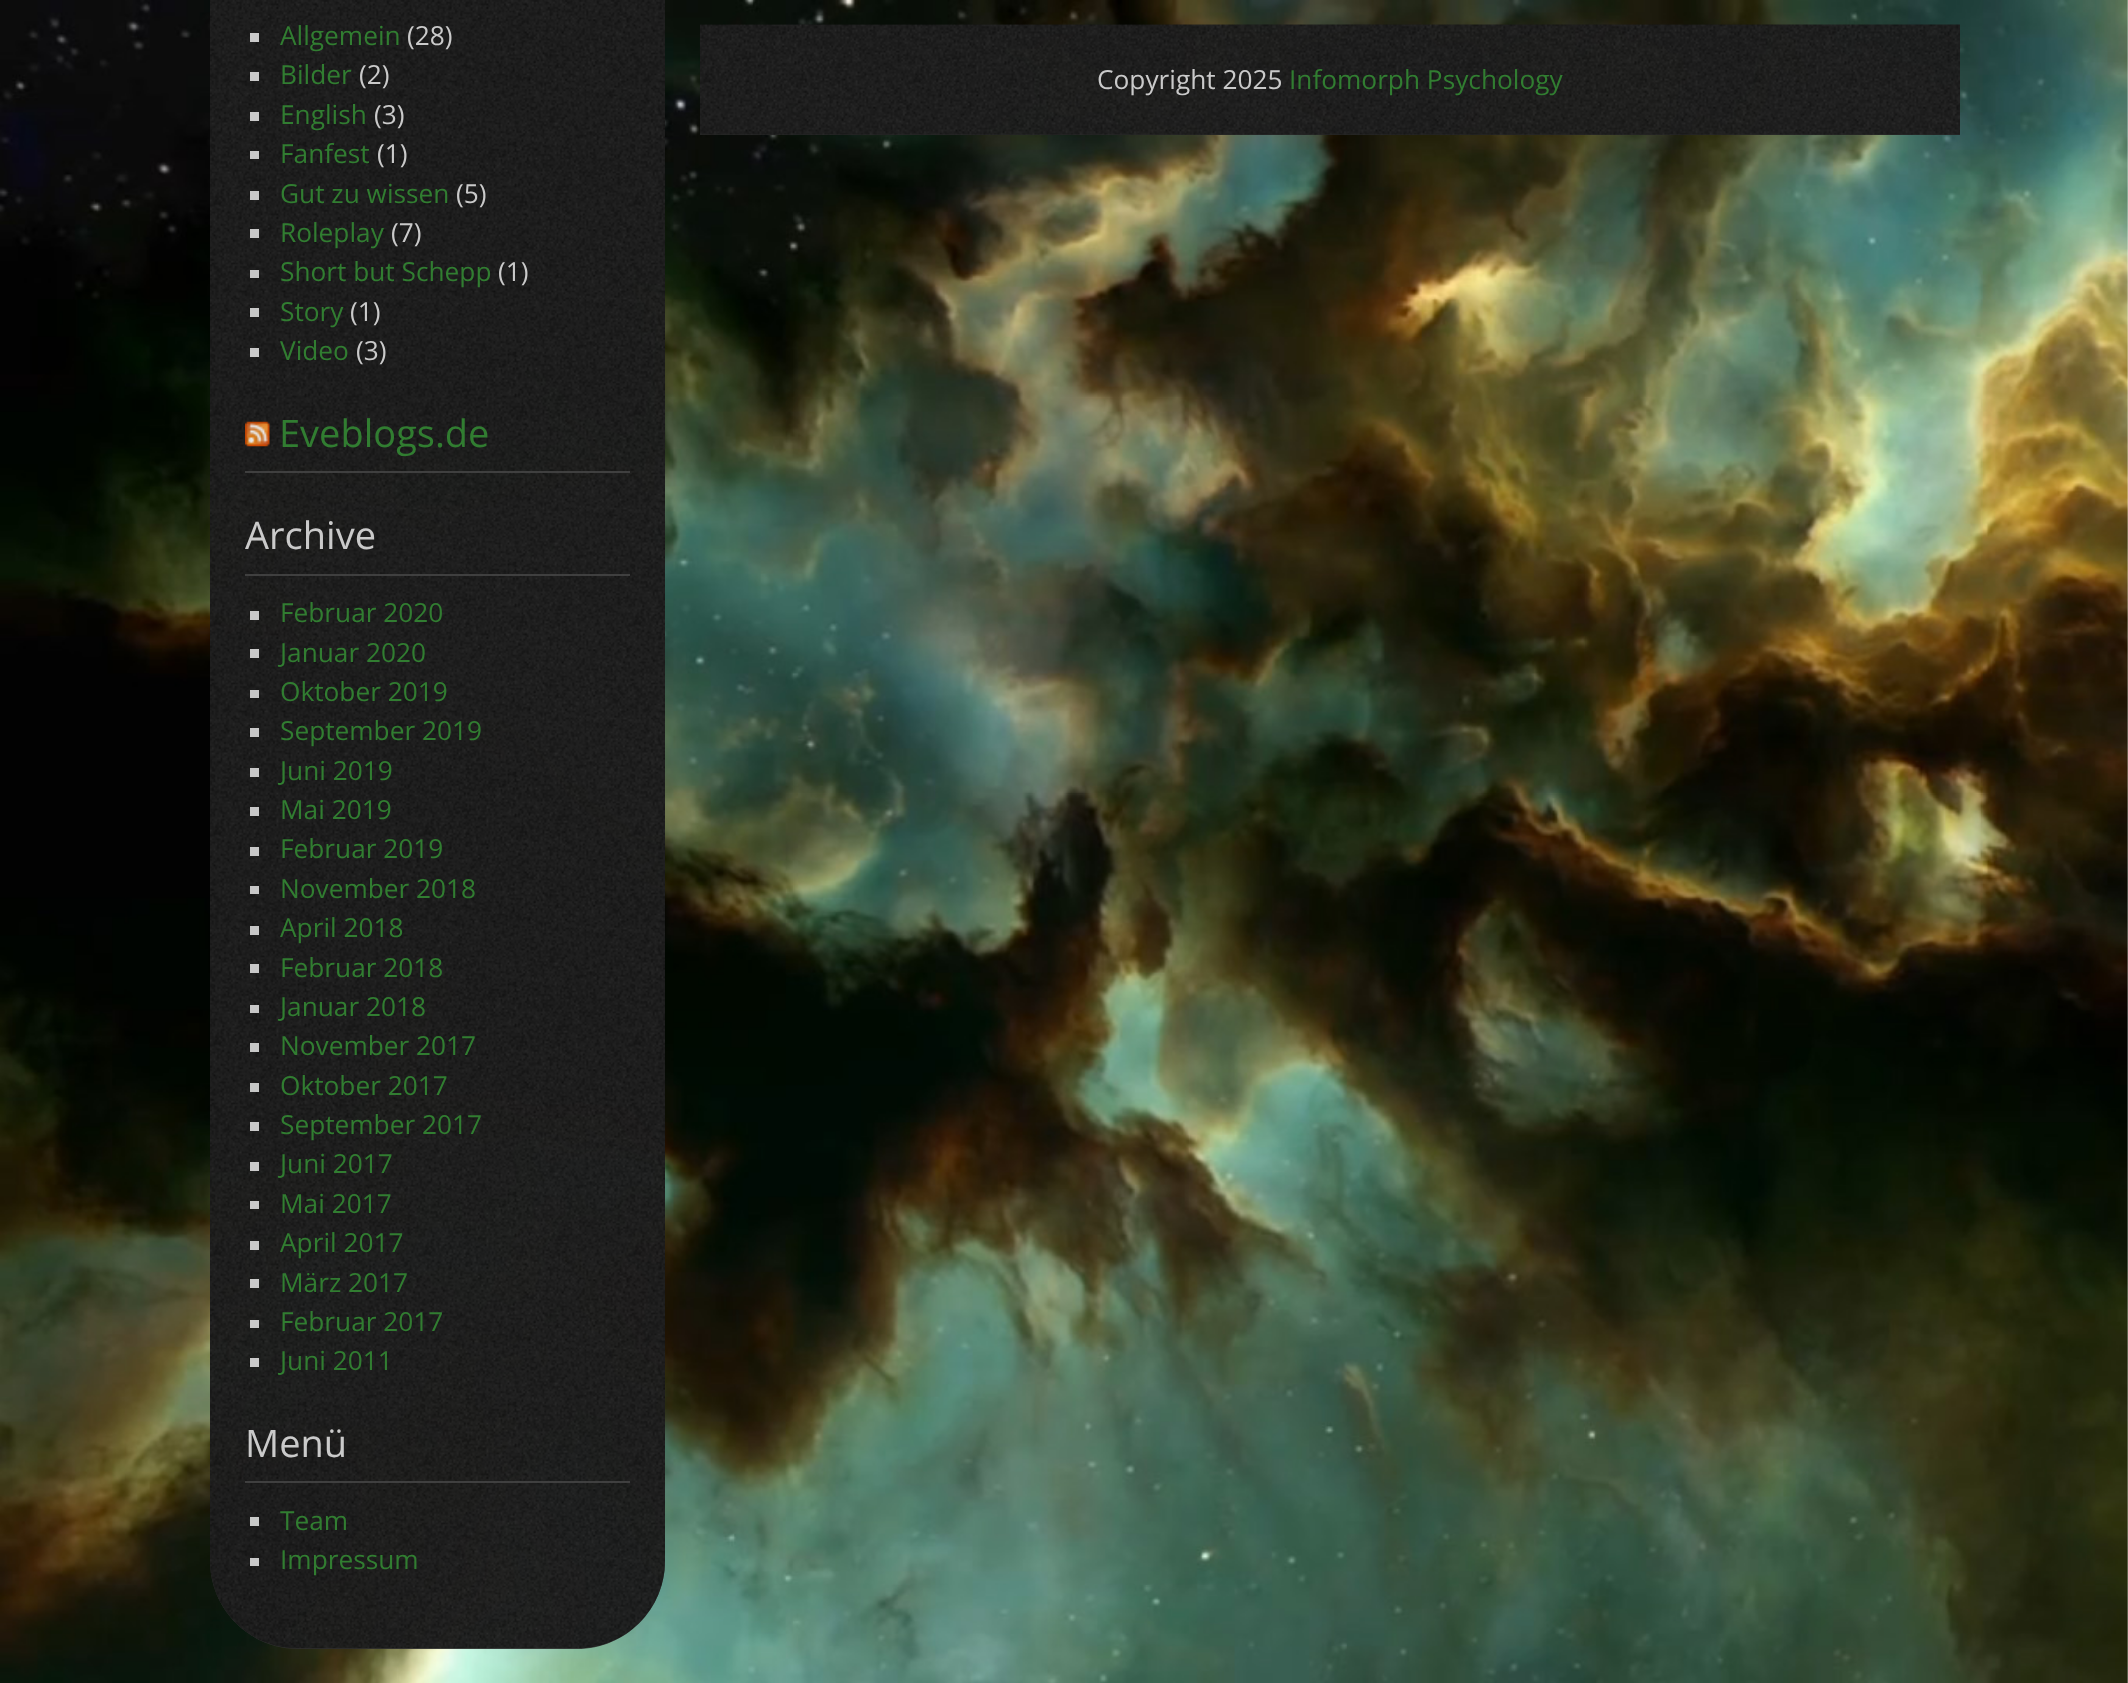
<svg xmlns="http://www.w3.org/2000/svg" xmlns:xlink="http://www.w3.org/1999/xlink" width="2128" height="1683" viewBox="0 0 2128 1683">
<style>
.cls-1{font:26.25px Open Sans;fill:#317d31}
.cls-2{font:26.25px Open Sans;fill:#cacaca}
.cls-3{font:38px Open Sans;fill:#317d31}
.cls-4{font:38px Open Sans;fill:#cacaca}
</style>
<rect width="100%" height="100%" fill="#ffffff"/>
<image xlink:href="image0.png" x="0" y="0" width="2128" height="1683"/>
<path fill="#333333" fill-opacity="0.9" d="M210-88H665V1561C665 1609.5 625.5 1649 577 1649H298C249.5 1649 210 1609.5 210 1561Z"/>
<image xlink:href="image1.png" x="210" y="0" width="455" height="1649"/>
<rect fill="#dddddd" fill-opacity="0.9" x="250" y="33" width="9" height="9"/>
<rect fill="#dddddd" fill-opacity="0.9" x="250" y="72" width="9" height="9"/>
<rect fill="#dddddd" fill-opacity="0.9" x="250" y="112" width="9" height="9"/>
<rect fill="#dddddd" fill-opacity="0.9" x="250" y="151" width="9" height="8"/>
<rect fill="#dddddd" fill-opacity="0.9" x="250" y="191" width="9" height="9"/>
<rect fill="#c7c7c7" x="250" y="229" width="9" height="9"/>
<rect fill="#c7c7c7" x="250" y="270" width="9" height="8"/>
<rect fill="#c7c8c7" x="250" y="308" width="9" height="9"/>
<rect fill="#dddddd" fill-opacity="0.9" x="250" y="348" width="9" height="9"/>
<rect fill="#444444" fill-opacity="0.9" x="245" y="471" width="385" height="2"/>
<image xlink:href="image2.png" x="245" y="421" width="25" height="26"/>
<rect fill="#444444" fill-opacity="0.9" x="245" y="574" width="385" height="2"/>
<rect fill="#dddddd" fill-opacity="0.9" x="250" y="611" width="9" height="9"/>
<rect fill="#dddddd" fill-opacity="0.9" x="250" y="649" width="9" height="9"/>
<rect fill="#c7c7c7" x="250" y="690" width="9" height="8"/>
<rect fill="#c7c7c7" x="250" y="728" width="9" height="9"/>
<rect fill="#c7c7c7" x="250" y="768" width="9" height="9"/>
<rect fill="#c7c7c7" x="250" y="807" width="9" height="9"/>
<rect fill="#c7c7c7" x="250" y="847" width="9" height="9"/>
<rect fill="#c7c7c7" x="250" y="886" width="9" height="8"/>
<rect fill="#c7c7c7" x="250" y="926" width="9" height="9"/>
<rect fill="#c7c7c7" x="250" y="964" width="9" height="9"/>
<rect fill="#c7c7c7" x="250" y="1005" width="9" height="8"/>
<rect fill="#c7c8c7" x="250" y="1043" width="9" height="9"/>
<rect fill="#c7c8c7" x="250" y="1083" width="9" height="9"/>
<rect fill="#dddddd" fill-opacity="0.9" x="250" y="1122" width="9" height="9"/>
<rect fill="#dddddd" fill-opacity="0.9" x="250" y="1162" width="9" height="9"/>
<rect fill="#dddddd" fill-opacity="0.9" x="250" y="1201" width="9" height="8"/>
<rect fill="#dddddd" fill-opacity="0.9" x="250" y="1241" width="9" height="9"/>
<rect fill="#dddddd" fill-opacity="0.9" x="250" y="1279" width="9" height="9"/>
<rect fill="#dddddd" fill-opacity="0.9" x="250" y="1320" width="9" height="8"/>
<rect fill="#dddddd" fill-opacity="0.9" x="250" y="1358" width="9" height="9"/>
<rect fill="#444444" fill-opacity="0.9" x="245" y="1481" width="385" height="2"/>
<rect fill="#c8c9c8" x="250" y="1517" width="9" height="9"/>
<rect fill="#dddddd" fill-opacity="0.9" x="250" y="1558" width="9" height="8"/>
<rect fill="#333333" fill-opacity="0.9" x="700" y="25" width="1260" height="110"/>
<image xlink:href="image3.png" x="700" y="24" width="1260" height="111"/>
<text class="cls-1" x="280" y="45">Allgemein</text>
<text class="cls-2" x="407" y="45">(28)</text>
<text class="cls-1" x="280" y="84">Bilder</text>
<text class="cls-2" x="359" y="84">(2)</text>
<text class="cls-1" x="280" y="124">English</text>
<text class="cls-2" x="374" y="124">(3)</text>
<text class="cls-1" x="280" y="163">Fanfest</text>
<text class="cls-2" x="377" y="163">(1)</text>
<text class="cls-1" x="280" y="203">Gut zu wissen</text>
<text class="cls-2" x="456" y="203">(5)</text>
<text class="cls-1" x="280" y="242">Roleplay</text>
<text class="cls-2" x="391" y="242">(7)</text>
<text class="cls-1" x="280" y="281">Short but Schepp</text>
<text class="cls-2" x="498" y="281">(1)</text>
<text class="cls-1" x="280" y="321">Story</text>
<text class="cls-2" x="350" y="321">(1)</text>
<text class="cls-1" x="280" y="360">Video</text>
<text class="cls-2" x="356" y="360">(3)</text>
<text class="cls-3" x="279" y="447">Eveblogs.de</text>
<text class="cls-4" x="245" y="549">Archive</text>
<text class="cls-1"><tspan x="280" y="622">Februar 2020</tspan><tspan x="280" y="662">Januar 2020</tspan><tspan x="280" y="701">Oktober 2019</tspan><tspan x="280" y="740">September 2019</tspan><tspan x="280" y="780">Juni 2019</tspan><tspan x="280" y="819">Mai 2019</tspan><tspan x="280" y="858">Februar 2019</tspan><tspan x="280" y="898">November 2018</tspan><tspan x="280" y="937">April 2018</tspan><tspan x="280" y="977">Februar 2018</tspan><tspan x="280" y="1016">Januar 2018</tspan><tspan x="280" y="1055">November 2017</tspan><tspan x="280" y="1095">Oktober 2017</tspan><tspan x="280" y="1134">September 2017</tspan><tspan x="280" y="1173">Juni 2017</tspan><tspan x="280" y="1213">Mai 2017</tspan><tspan x="280" y="1252">April 2017</tspan><tspan x="280" y="1292">März 2017</tspan><tspan x="280" y="1331">Februar 2017</tspan><tspan x="280" y="1370">Juni 2011</tspan></text>
<text class="cls-4" x="245" y="1457">Menü</text>
<text class="cls-1"><tspan x="280" y="1530">Team</tspan><tspan x="280" y="1569">Impressum</tspan></text>
<text class="cls-2" x="1097" y="89">Copyright 2025</text>
<text class="cls-1" x="1289" y="89">Infomorph Psychology</text>
</svg>
